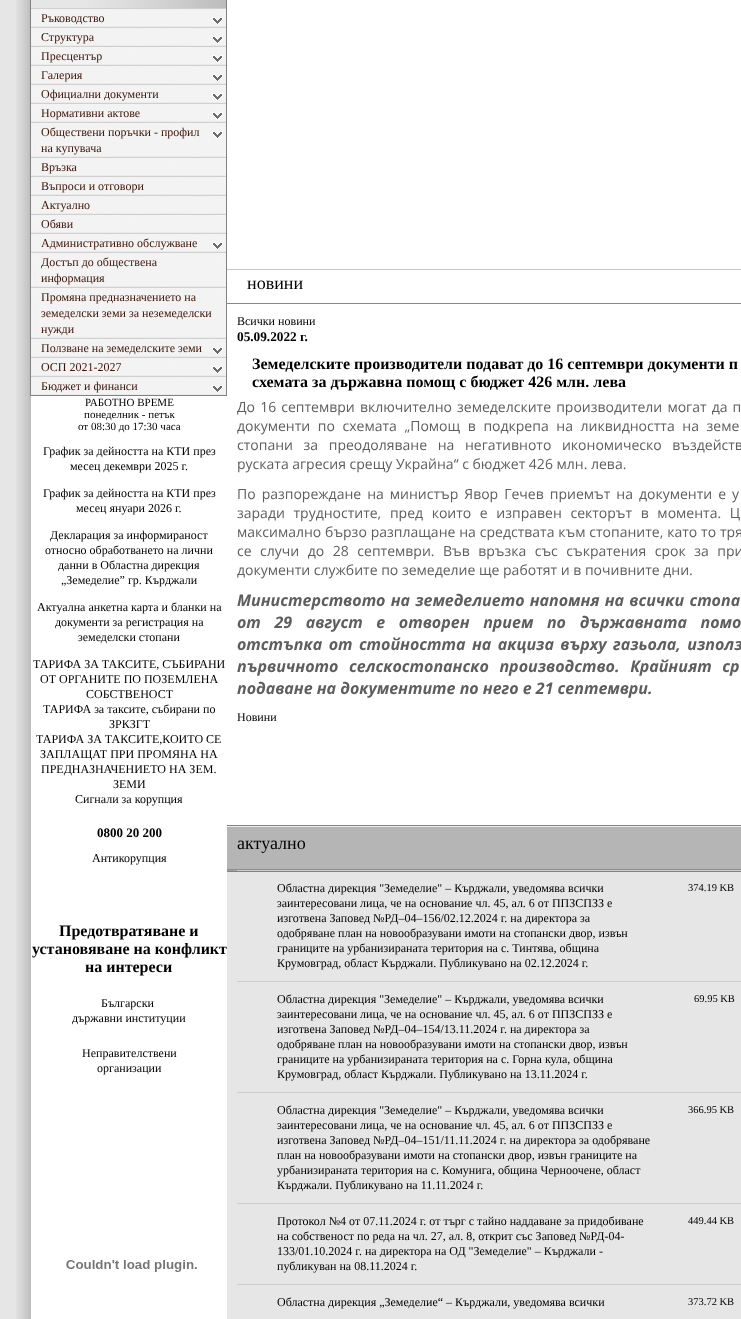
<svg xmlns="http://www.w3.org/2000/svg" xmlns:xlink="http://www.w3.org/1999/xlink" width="741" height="1319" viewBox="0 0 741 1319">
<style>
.cls-1{font:12px Liberation Serif;fill:#3d1508}
.cls-2{font:11px Liberation Serif;fill:#000000}
.cls-3{font:12px Liberation Serif;fill:#000000}
.cls-4{font:bold 13px Liberation Serif;fill:#000000}
.cls-5{font:bold 16px Liberation Serif;fill:#000000}
.cls-6{font:18px Liberation Serif;fill:#000000}
.cls-7{font:bold 13.25px Liberation Serif;fill:#000000}
.cls-8{font:14px Open Sans;fill:#5e5e5e}
.cls-9{font:italic bold 16px Open Sans;fill:#5e5e5e}
.cls-10{font:10.5px Liberation Serif;fill:#000000}
</style>
<rect width="100%" height="100%" fill="#e6e6e6"/>
<image xlink:href="image0.png" x="16" y="0" width="725" height="1319"/>
<rect fill="none" stroke="#828282" x="30.5" y="-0.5" width="196" height="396"/>
<image xlink:href="image1.png" x="31" y="0" width="195" height="8"/>
<image xlink:href="image2.png" x="31" y="8" width="195" height="18"/>
<rect fill="#ebebeb" x="31" y="26" width="195" height="1"/>
<image xlink:href="image3.png" x="212" y="17" width="11" height="8"/>
<image xlink:href="image2.png" x="31" y="27" width="195" height="18"/>
<rect fill="#ebebeb" x="31" y="45" width="195" height="1"/>
<image xlink:href="image3.png" x="212" y="36" width="11" height="8"/>
<image xlink:href="image2.png" x="31" y="46" width="195" height="18"/>
<rect fill="#ebebeb" x="31" y="64" width="195" height="1"/>
<image xlink:href="image3.png" x="212" y="55" width="11" height="8"/>
<image xlink:href="image2.png" x="31" y="65" width="195" height="18"/>
<rect fill="#ebebeb" x="31" y="83" width="195" height="1"/>
<image xlink:href="image3.png" x="212" y="74" width="11" height="8"/>
<image xlink:href="image2.png" x="31" y="84" width="195" height="18"/>
<rect fill="#ebebeb" x="31" y="102" width="195" height="1"/>
<image xlink:href="image3.png" x="212" y="93" width="11" height="8"/>
<image xlink:href="image2.png" x="31" y="103" width="195" height="18"/>
<rect fill="#ebebeb" x="31" y="121" width="195" height="1"/>
<image xlink:href="image3.png" x="212" y="112" width="11" height="8"/>
<image xlink:href="image4.png" x="31" y="122" width="195" height="34"/>
<rect fill="#ebebeb" x="31" y="156" width="195" height="1"/>
<image xlink:href="image3.png" x="212" y="131" width="11" height="8"/>
<image xlink:href="image2.png" x="31" y="157" width="195" height="18"/>
<rect fill="#ebebeb" x="31" y="175" width="195" height="1"/>
<image xlink:href="image2.png" x="31" y="176" width="195" height="18"/>
<rect fill="#ebebeb" x="31" y="194" width="195" height="1"/>
<image xlink:href="image2.png" x="31" y="195" width="195" height="18"/>
<rect fill="#ebebeb" x="31" y="213" width="195" height="1"/>
<image xlink:href="image2.png" x="31" y="214" width="195" height="18"/>
<rect fill="#ebebeb" x="31" y="232" width="195" height="1"/>
<image xlink:href="image2.png" x="31" y="233" width="195" height="18"/>
<rect fill="#ebebeb" x="31" y="251" width="195" height="1"/>
<image xlink:href="image3.png" x="212" y="242" width="11" height="8"/>
<image xlink:href="image4.png" x="31" y="252" width="195" height="34"/>
<rect fill="#ebebeb" x="31" y="286" width="195" height="1"/>
<image xlink:href="image5.png" x="31" y="287" width="195" height="50"/>
<rect fill="#ebebeb" x="31" y="337" width="195" height="1"/>
<image xlink:href="image2.png" x="31" y="338" width="195" height="18"/>
<rect fill="#ebebeb" x="31" y="356" width="195" height="1"/>
<image xlink:href="image3.png" x="212" y="347" width="11" height="8"/>
<image xlink:href="image2.png" x="31" y="357" width="195" height="18"/>
<rect fill="#ebebeb" x="31" y="375" width="195" height="1"/>
<image xlink:href="image3.png" x="212" y="366" width="11" height="8"/>
<image xlink:href="image2.png" x="31" y="376" width="195" height="18"/>
<rect fill="#ebebeb" x="31" y="394" width="195" height="1"/>
<image xlink:href="image3.png" x="212" y="385" width="11" height="8"/>
<image xlink:href="image6.png" x="66" y="1260" width="131" height="12"/>
<rect fill="#c5c6c8" x="227" y="269" width="514" height="1"/>
<rect fill="#898989" x="227" y="303" width="514" height="1"/>
<rect fill="#e6e6e6" x="227" y="872" width="514" height="447"/>
<image xlink:href="image7.png" x="227" y="825" width="514" height="47"/>
<rect fill="#cccccc" x="237" y="870" width="504" height="1"/>
<rect fill="#cccccc" x="237" y="981" width="504" height="1"/>
<rect fill="#cccccc" x="237" y="1092" width="504" height="1"/>
<rect fill="#cccccc" x="237" y="1203" width="504" height="1"/>
<rect fill="#cccccc" x="237" y="1284" width="504" height="1"/>
<text class="cls-1"><tspan x="41" y="22">Ръководство</tspan><tspan x="41" y="41">Структура</tspan><tspan x="41" y="60">Пресцентър</tspan><tspan x="41" y="79">Галерия</tspan><tspan x="41" y="98">Официални документи</tspan><tspan x="41" y="117">Нормативни актове</tspan><tspan x="41" y="136">Обществени поръчки - профил</tspan><tspan x="41" y="152">на купувача</tspan><tspan x="41" y="171">Връзка</tspan><tspan x="41" y="190">Въпроси и отговори</tspan><tspan x="41" y="209">Актуално</tspan><tspan x="41" y="228">Обяви</tspan><tspan x="41" y="247">Административно обслужване</tspan><tspan x="41" y="266">Достъп до обществена</tspan><tspan x="41" y="282">информация</tspan><tspan x="41" y="301">Промяна предназначението на</tspan><tspan x="41" y="317">земеделски земи за неземеделски</tspan><tspan x="41" y="333">нужди</tspan><tspan x="41" y="352">Ползване на земеделските земи</tspan><tspan x="41" y="371">ОСП 2021-2027</tspan><tspan x="41" y="390">Бюджет и финанси</tspan></text>
<text class="cls-2" x="85" y="406">РАБОТНО ВРЕМЕ</text>
<text class="cls-2" x="84" y="418">понеделник - петък</text>
<text class="cls-2" x="78" y="430">от 08:30 до 17:30 часа</text>
<text class="cls-3" x="43" y="455">График за дейността на КТИ през</text>
<text class="cls-3" x="70" y="470">месец декември 2025 г.</text>
<text class="cls-3" x="43" y="497">График за дейността на КТИ през</text>
<text class="cls-3" x="76" y="512">месец януари 2026 г.</text>
<text class="cls-3" x="50" y="539">Декларация за информираност</text>
<text class="cls-3" x="45" y="554">относно обработването на лични</text>
<text class="cls-3" x="58" y="569">данни в Областна дирекция</text>
<text class="cls-3" x="61" y="584">„Земеделие” гр. Кърджали</text>
<text class="cls-3" x="37" y="611">Актуална анкетна карта и бланки на</text>
<text class="cls-3" x="55" y="626">документи за регистрация на</text>
<text class="cls-3" x="78" y="641">земеделски стопани</text>
<text class="cls-3" x="33" y="668">ТАРИФА ЗА ТАКСИТЕ, СЪБИРАНИ</text>
<text class="cls-3" x="40" y="683">ОТ ОРГАНИТЕ ПО ПОЗЕМЛЕНА</text>
<text class="cls-3" x="86" y="698">СОБСТВЕНОСТ</text>
<text class="cls-3" x="43" y="713">ТАРИФА за таксите, събирани по</text>
<text class="cls-3" x="109" y="728">ЗРКЗГТ</text>
<text class="cls-3" x="36" y="743">ТАРИФА ЗА ТАКСИТЕ,КОИТО СЕ</text>
<text class="cls-3" x="40" y="758">ЗАПЛАЩАТ ПРИ ПРОМЯНА НА</text>
<text class="cls-3" x="41" y="773">ПРЕДНАЗНАЧЕНИЕТО НА ЗЕМ.</text>
<text class="cls-3" x="113" y="788">ЗЕМИ</text>
<text class="cls-3" x="75" y="803">Сигнали за корупция</text>
<text class="cls-4" x="97" y="837">0800 20 200</text>
<text class="cls-3" x="92" y="862">Антикорупция</text>
<text class="cls-5" x="59" y="936">Предотвратяване и</text>
<text class="cls-5" x="32" y="954">установяване на конфликт</text>
<text class="cls-5" x="85" y="972">на интереси</text>
<text class="cls-3" x="101" y="1007">Български</text>
<text class="cls-3" x="72" y="1022">държавни институции</text>
<text class="cls-3" x="82" y="1057">Неправителствени</text>
<text class="cls-3" x="97" y="1072">организации</text>
<text class="cls-6" x="247" y="289">новини</text>
<text class="cls-3" x="237" y="325">Всички новини</text>
<text class="cls-7" x="237" y="341">05.09.2022 г.</text>
<text class="cls-5"><tspan x="252" y="369">Земеделските производители подават до 16 септември документи п</tspan><tspan x="252" y="387">схемата за държавна помощ с бюджет 426 млн. лева</tspan></text>
<text class="cls-8"><tspan x="237" y="412" word-spacing="1.5">До 16 септември включително земеделските производители могат да п</tspan><tspan x="237" y="431" word-spacing="4">документи по схемата „Помощ в подкрепа на ликвидността на земе</tspan><tspan x="237" y="450" word-spacing="7">стопани за преодоляване на негативното икономическо въздейств</tspan><tspan x="237" y="469">руската агресия срещу Украйна“ с бюджет 426 млн. лева.</tspan></text>
<text class="cls-8"><tspan x="237" y="499" word-spacing="2.4">По разпореждане на министър Явор Гечев приемът на документи е у</tspan><tspan x="237" y="518" word-spacing="5">заради трудностите, пред които е изправен секторът в момента. Ц</tspan><tspan x="237" y="537" word-spacing="0.25">максимално бързо разплащане на средствата към стопаните, като то тря</tspan><tspan x="237" y="556" word-spacing="4.9">се случи до 28 септември. Във връзка със съкратения срок за при</tspan><tspan x="237" y="575">документи службите по земеделие ще работят и в почивните дни.</tspan></text>
<text class="cls-9"><tspan x="237" y="606" word-spacing="1">Министерството на земеделието напомня на всички стопа</tspan><tspan x="237" y="628" word-spacing="9.5">от 29 август е отворен прием по държавната помо</tspan><tspan x="237" y="650" word-spacing="2.25">отстъпка от стойността на акциза върху газьола, използ</tspan><tspan x="237" y="672" word-spacing="6.5">първичното селскостопанско производство. Крайният ср</tspan><tspan x="237" y="694">подаване на документите по него е 21 септември.</tspan></text>
<text class="cls-3" x="237" y="721">Новини</text>
<text class="cls-6" x="237" y="849">актуално</text>
<text class="cls-3"><tspan x="277" y="892">Областна дирекция "Земеделие" – Кърджали, уведомява всички</tspan><tspan x="277" y="907">заинтересовани лица, че на основание чл. 45, ал. 6 от ППЗСПЗЗ е</tspan><tspan x="277" y="922">изготвена Заповед №РД–04–156/02.12.2024 г. на директора за</tspan><tspan x="277" y="937">одобряване план на новообразувани имоти на стопански двор, извън</tspan><tspan x="277" y="952">границите на урбанизираната територия на с. Тинтява, община</tspan><tspan x="277" y="967">Крумовград, област Кърджали. Публикувано на 02.12.2024 г.</tspan></text>
<text class="cls-10" x="688" y="891">374.19 KB</text>
<text class="cls-3"><tspan x="277" y="1003">Областна дирекция "Земеделие" – Кърджали, уведомява всички</tspan><tspan x="277" y="1018">заинтересовани лица, че на основание чл. 45, ал. 6 от ППЗСПЗЗ е</tspan><tspan x="277" y="1033">изготвена Заповед №РД–04–154/13.11.2024 г. на директора за</tspan><tspan x="277" y="1048">одобряване план на новообразувани имоти на стопански двор, извън</tspan><tspan x="277" y="1063">границите на урбанизираната територия на с. Горна кула, община</tspan><tspan x="277" y="1078">Крумовград, област Кърджали. Публикувано на 13.11.2024 г.</tspan></text>
<text class="cls-10" x="694" y="1002">69.95 KB</text>
<text class="cls-3"><tspan x="277" y="1114">Областна дирекция "Земеделие" – Кърджали, уведомява всички</tspan><tspan x="277" y="1129">заинтересовани лица, че на основание чл. 45, ал. 6 от ППЗСПЗЗ е</tspan><tspan x="277" y="1144">изготвена Заповед №РД–04–151/11.11.2024 г. на директора за одобряване</tspan><tspan x="277" y="1159">план на новообразувани имоти на стопански двор, извън границите на</tspan><tspan x="277" y="1174">урбанизираната територия на с. Комунига, община Черноочене, област</tspan><tspan x="277" y="1189">Кърджали. Публикувано на 11.11.2024 г.</tspan></text>
<text class="cls-10" x="688" y="1113">366.95 KB</text>
<text class="cls-3"><tspan x="277" y="1225">Протокол №4 от 07.11.2024 г. от търг с тайно наддаване за придобиване</tspan><tspan x="277" y="1240">на собственост по реда на чл. 27, ал. 8, открит със Заповед №РД-04-</tspan><tspan x="277" y="1255">133/01.10.2024 г. на директора на ОД "Земеделие" – Кърджали -</tspan><tspan x="277" y="1270">публикуван на 08.11.2024 г.</tspan></text>
<text class="cls-10" x="688" y="1224">449.44 KB</text>
<text class="cls-3" x="277" y="1306">Областна дирекция „Земеделие“ – Кърджали, уведомява всички</text>
<text class="cls-10" x="688" y="1305">373.72 KB</text>
</svg>
